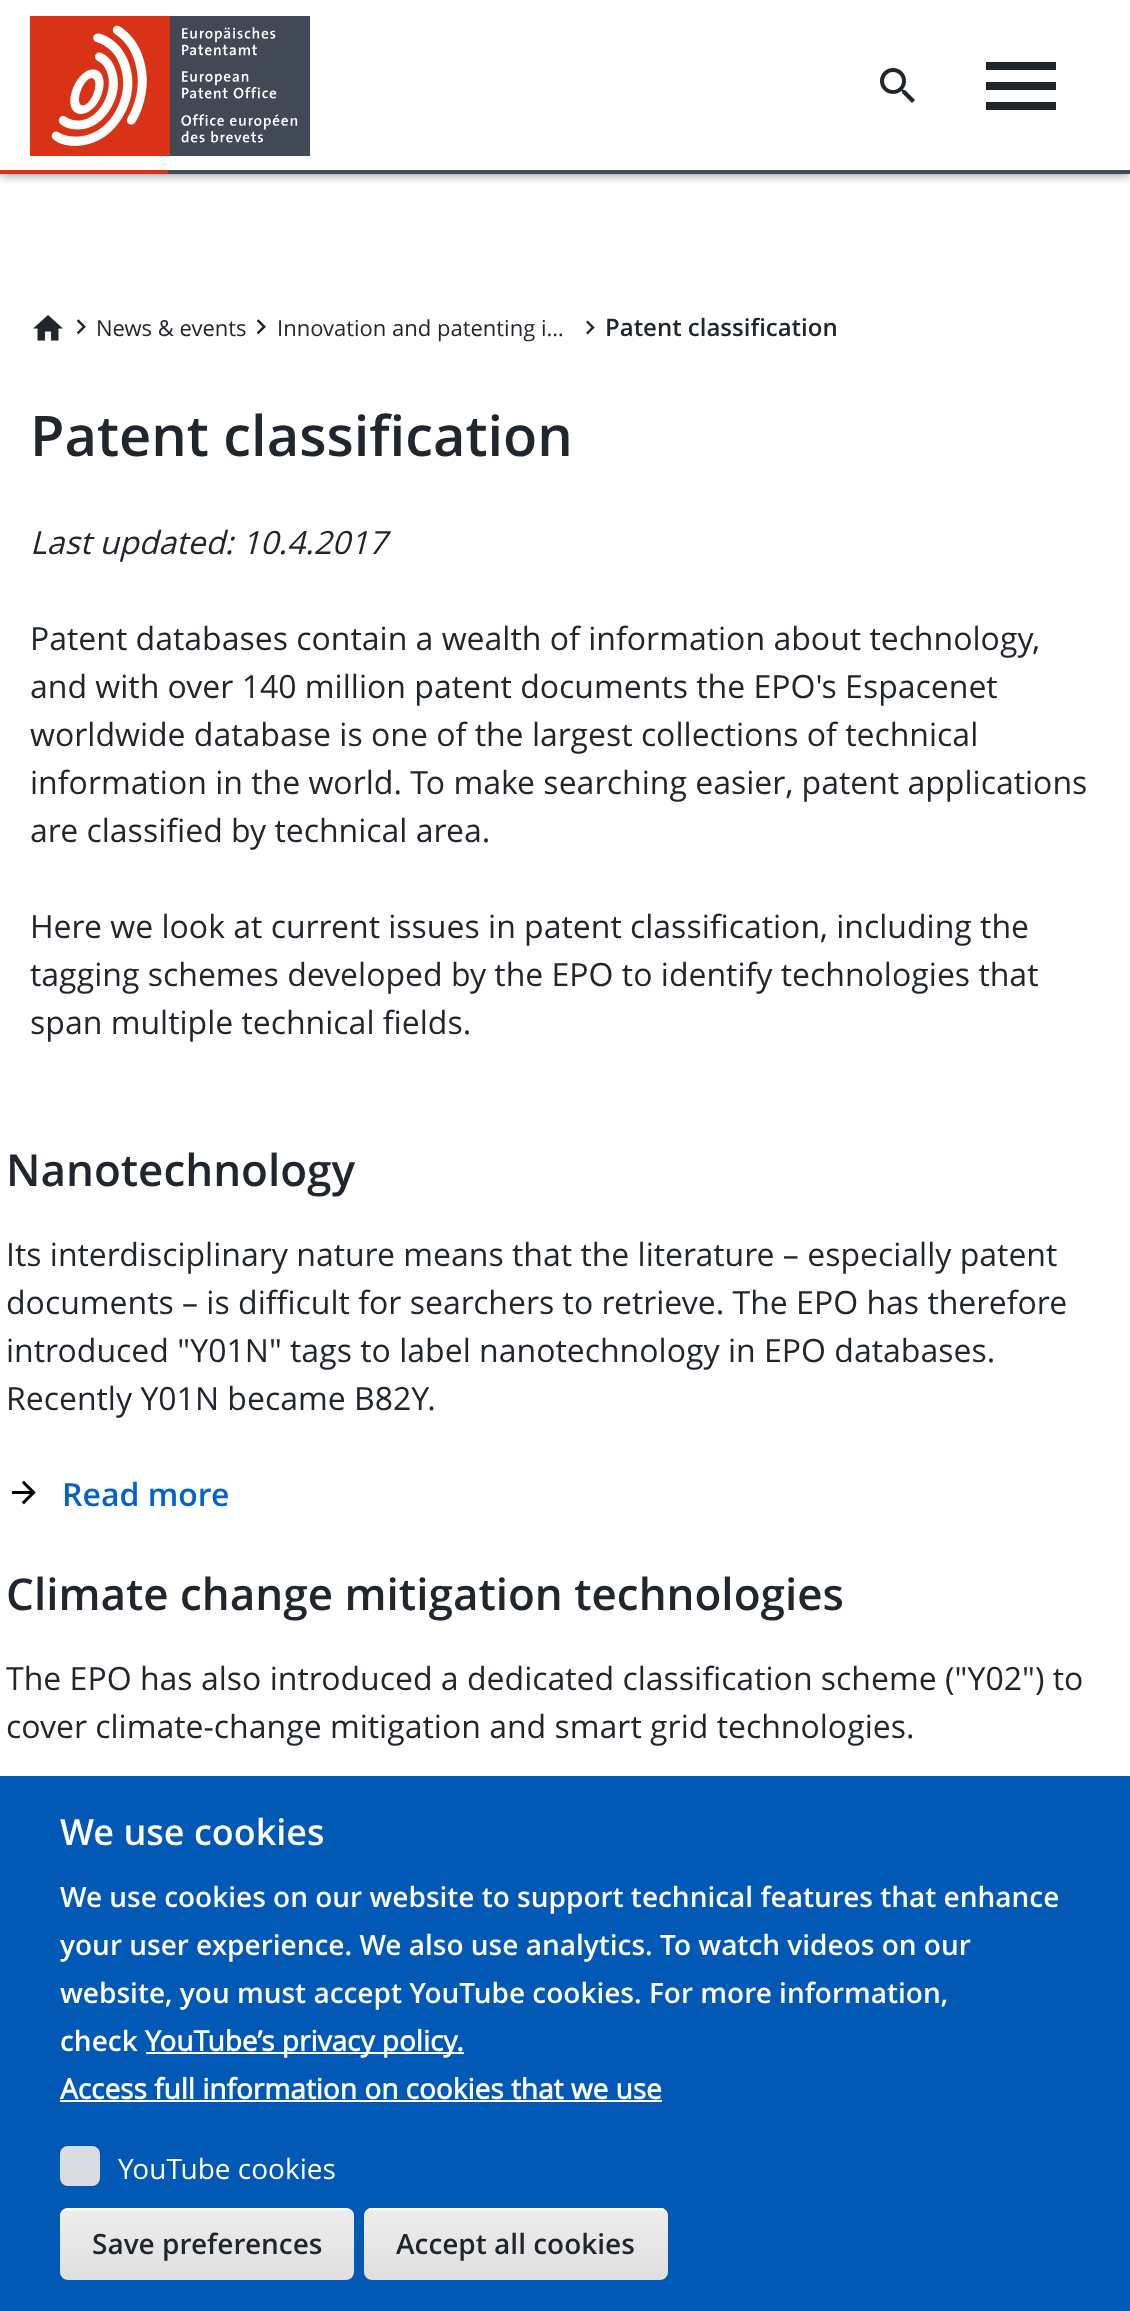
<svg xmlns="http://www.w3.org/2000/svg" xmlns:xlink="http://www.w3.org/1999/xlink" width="1130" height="2311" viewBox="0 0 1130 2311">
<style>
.cls-1{font:22px Open Sans;fill:#21252c}
.cls-2{font:600 24px Open Sans;fill:#21252c}
.cls-3{font:600 56px Open Sans;fill:#21252c}
.cls-4{font:italic 32px Open Sans;fill:#21252c}
.cls-5{font:32px Open Sans;fill:#21252c}
.cls-6{font:600 44px Open Sans;fill:#21252c}
.cls-7{font:600 32px Open Sans;fill:#0262ca}
.cls-8{font:600 36px Open Sans;fill:#ffffff}
.cls-9{font:600 28px Open Sans;fill:#ffffff}
.cls-10{font:bold 28px Open Sans;fill:#ffffff}
.cls-11{font:28px Open Sans;fill:#ffffff}
.cls-12{font:600 28px Open Sans;fill:#21252c}
</style>
<defs>
<clipPath id="clip1"><rect x="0" y="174" width="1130" height="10"/></clipPath>
<linearGradient id="g1" gradientUnits="userSpaceOnUse" x1="207" y1="2208" x2="207" y2="2280"><stop offset="0.05" stop-color="#ededed"/><stop offset="1" stop-color="#dfdfdf"/></linearGradient>
<linearGradient id="g2" gradientUnits="userSpaceOnUse" x1="516" y1="2208" x2="516" y2="2280"><stop offset="0.05" stop-color="#ededed"/><stop offset="1" stop-color="#dfdfdf"/></linearGradient>
</defs>
<rect width="100%" height="100%" fill="#ffffff"/>
<g clip-path="url(#clip1)">
<rect fill="#000000" fill-opacity="0.5" filter="blur(6px)" x="0" y="0" width="1130" height="174"/>
</g>
<rect fill="#404955" x="168" y="170" width="962" height="4"/>
<image xlink:href="image0.png" x="30" y="16" width="140" height="140"/>
<image xlink:href="image1.png" x="170" y="16" width="140" height="140"/>
<image xlink:href="image2.png" x="880" y="68" width="35" height="35"/>
<rect fill="#21252c" x="986" y="62" width="70" height="8"/>
<rect fill="#21252c" x="986" y="82" width="70" height="8"/>
<rect fill="#21252c" x="986" y="102" width="70" height="8"/>
<rect fill="#d93317" x="0" y="170" width="168" height="4"/>
<image xlink:href="image3.png" x="33" y="315" width="30" height="26"/>
<image xlink:href="image4.png" x="76" y="319" width="10" height="16"/>
<image xlink:href="image4.png" x="256" y="319" width="10" height="16"/>
<image xlink:href="image5.png" x="586" y="320" width="9" height="15"/>
<image xlink:href="image6.png" x="11" y="1480" width="25" height="25"/>
<rect fill="#0258b5" x="0" y="1776" width="1130" height="535"/>
<rect fill="#ffffff" x="146" y="2052" width="318" height="2"/>
<rect fill="#ffffff" x="60" y="2100" width="602" height="2"/>
<rect fill="#d9dde3" x="60" y="2146" width="40" height="40" rx="8"/>
<rect fill="url(#g1)" x="60" y="2208" width="294" height="72" rx="8"/>
<path fill="#ffffff" d="M68 2210H346C350 2210 354 2214 354 2218V2216C354 2212 350 2208 346 2208H68C64 2208 60 2212 60 2216V2218C60 2214 64 2210 68 2210Z"/>
<rect fill="url(#g2)" x="364" y="2208" width="304" height="72" rx="8"/>
<path fill="#ffffff" d="M372 2210H660C664 2210 668 2214 668 2218C668 2214 667 2209 662 2208H372C366 2208 364 2213 364 2218C364 2214 368 2210 372 2210Z"/>
<text class="cls-1" x="96" y="336">News &amp; events</text>
<text class="cls-1" x="277" y="336">Innovation and patenting i…</text>
<text class="cls-2" x="605" y="336">Patent classification</text>
<text class="cls-3" x="30" y="456">Patent classification</text>
<text class="cls-4" x="30" y="554">Last updated: 10.4.2017</text>
<text class="cls-5"><tspan x="30" y="650">Patent databases contain a wealth of information about technology,</tspan><tspan x="30" y="698">and with over 140 million patent documents the EPO's Espacenet</tspan><tspan x="30" y="746">worldwide database is one of the largest collections of technical</tspan><tspan x="30" y="794">information in the world. To make searching easier, patent applications</tspan><tspan x="30" y="842">are classified by technical area.</tspan></text>
<text class="cls-5"><tspan x="30" y="938">Here we look at current issues in patent classification, including the</tspan><tspan x="30" y="986">tagging schemes developed by the EPO to identify technologies that</tspan><tspan x="30" y="1034">span multiple technical fields.</tspan></text>
<text class="cls-6" x="6" y="1186">Nanotechnology</text>
<text class="cls-5"><tspan x="6" y="1266">Its interdisciplinary nature means that the literature – especially patent</tspan><tspan x="6" y="1314">documents – is difficult for searchers to retrieve. The EPO has therefore</tspan><tspan x="6" y="1362">introduced "Y01N" tags to label nanotechnology in EPO databases.</tspan><tspan x="6" y="1410">Recently Y01N became B82Y.</tspan></text>
<text class="cls-7" x="62" y="1506">Read more</text>
<text class="cls-6" x="6" y="1610">Climate change mitigation technologies</text>
<text class="cls-5"><tspan x="6" y="1690">The EPO has also introduced a dedicated classification scheme ("Y02") to</tspan><tspan x="6" y="1738">cover climate-change mitigation and smart grid technologies.</tspan></text>
<text class="cls-8" x="60" y="1845">We use cookies</text>
<text class="cls-9"><tspan x="60" y="1907">We use cookies on our website to support technical features that enhance</tspan><tspan x="60" y="1955">your user experience. We also use analytics. To watch videos on our</tspan><tspan x="60" y="2003">website, you must accept YouTube cookies. For more information,</tspan><tspan x="60" y="2051">check</tspan></text>
<text class="cls-10" x="145" y="2051">YouTube’s privacy policy.</text>
<text class="cls-10" x="60" y="2099">Access full information on cookies that we use</text>
<text class="cls-11" x="118" y="2179">YouTube cookies</text>
<text class="cls-12" x="92" y="2254">Save preferences</text>
<text class="cls-12" x="396" y="2254">Accept all cookies</text>
</svg>
